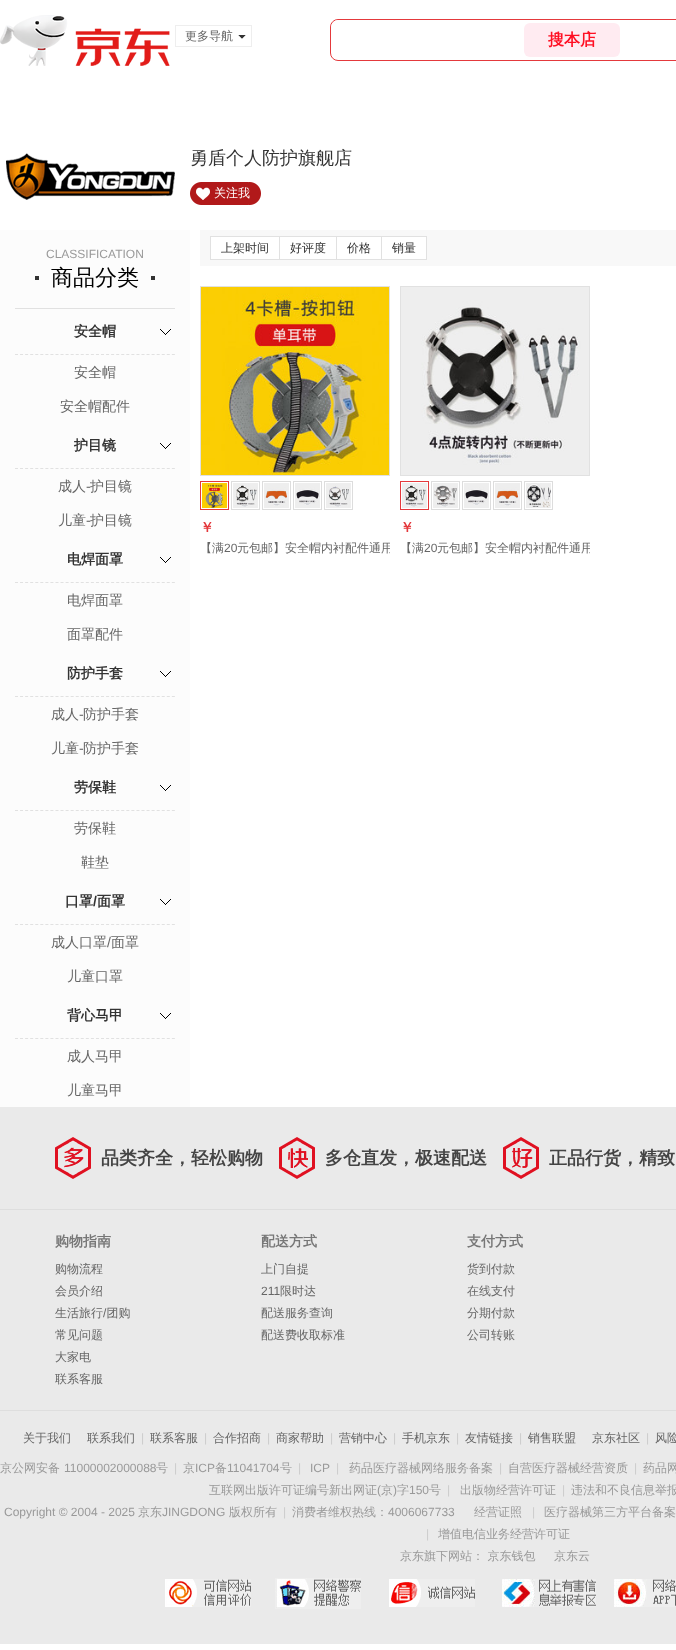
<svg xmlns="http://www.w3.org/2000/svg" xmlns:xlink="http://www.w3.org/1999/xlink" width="676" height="1650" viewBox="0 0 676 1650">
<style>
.cls-1{font:500 12px WenQuanYi Zen Hei;fill:#666666}
.cls-2{font:bold 16px WenQuanYi Zen Hei;fill:#ff0f23}
.cls-3{font:500 18px WenQuanYi Zen Hei;fill:#333333}
.cls-4{font:500 12px WenQuanYi Zen Hei;fill:#ffffff}
.cls-5{font:12px Liberation Sans;fill:#999999}
.cls-6{font:500 22px WenQuanYi Zen Hei;fill:#000000}
.cls-7{font:bold 14px WenQuanYi Zen Hei;fill:#333333}
.cls-8{font:500 14px WenQuanYi Zen Hei;fill:#666666}
.cls-9{font:14px Liberation Sans;fill:#666666}
.cls-10{font:bold 14px Liberation Sans;fill:#333333}
.cls-11{font:500 12px WenQuanYi Zen Hei;fill:#333333}
.cls-12{font:bold 14px WenQuanYi Zen Hei;fill:#e4393c}
.cls-13{font:12px Liberation Sans;fill:#666666}
.cls-14{font:bold 18px WenQuanYi Zen Hei;fill:#444444}
.cls-15{font:bold 14px WenQuanYi Zen Hei;fill:#777777}
.cls-16{font:12px Liberation Sans;fill:#cccccc}
.cls-17{font:500 12px WenQuanYi Zen Hei;fill:#999999}
</style>
<defs>
<clipPath id="clip1"><rect x="200" y="540" width="190" height="16"/></clipPath>
<clipPath id="clip2"><rect x="400" y="540" width="190" height="16"/></clipPath>
</defs>
<rect width="100%" height="100%" fill="#ffffff"/>
<image xlink:href="image0.png" x="0" y="15" width="170" height="51"/>
<rect fill="none" stroke="#eeeeee" x="175.5" y="25.5" width="76" height="21"/>
<path fill="#333333" d="M238 35H246L242 39Z"/>
<path fill="#ffffff" d="M246 35V43L242 39ZM238 43V35L242 39Z"/>
<rect fill="none" stroke="#e4393c" x="330.5" y="19.5" width="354" height="41" rx="7.5"/>
<path fill="#ffffff" d="M339 20H526V50H331V28C331 23.5 334.5 20 339 20Z"/>
<rect fill="#ffebf1" x="524" y="23" width="96" height="34" rx="6"/>
<image xlink:href="image1.png" x="6" y="153" width="169" height="47"/>
<image xlink:href="image2.png" x="190" y="182" width="71" height="23"/>
<rect fill="#fcfcfc" x="0" y="230" width="190" height="877"/>
<rect fill="#e1e1e1" x="15" y="308" width="160" height="1"/>
<rect fill="#333333" x="35" y="276" width="4" height="4"/>
<rect fill="#333333" x="151" y="276" width="4" height="4"/>
<path fill="none" stroke="#e1e1e1" stroke-dasharray="3 2.06" d="M15 354.5H175"/>
<image xlink:href="image3.png" x="160" y="329" width="11" height="6"/>
<path fill="none" stroke="#e1e1e1" stroke-dasharray="3 2.06" d="M15 468.5H175"/>
<image xlink:href="image3.png" x="160" y="443" width="11" height="6"/>
<path fill="none" stroke="#e1e1e1" stroke-dasharray="3 2.06" d="M15 582.5H175"/>
<image xlink:href="image3.png" x="160" y="557" width="11" height="6"/>
<path fill="none" stroke="#e1e1e1" stroke-dasharray="3 2.06" d="M15 696.5H175"/>
<image xlink:href="image3.png" x="160" y="671" width="11" height="6"/>
<path fill="none" stroke="#e1e1e1" stroke-dasharray="3 2.06" d="M15 810.5H175"/>
<image xlink:href="image3.png" x="160" y="785" width="11" height="6"/>
<path fill="none" stroke="#e1e1e1" stroke-dasharray="3 2.06" d="M15 924.5H175"/>
<image xlink:href="image3.png" x="160" y="899" width="11" height="6"/>
<path fill="none" stroke="#e1e1e1" stroke-dasharray="3 2.06" d="M15 1038.5H175"/>
<image xlink:href="image3.png" x="160" y="1013" width="11" height="6"/>
<rect fill="#f8f8f8" x="200" y="230" width="476" height="36"/>
<rect fill="#ffffff" stroke="#e1e1e1" x="210.5" y="236.5" width="69" height="23"/>
<rect fill="#ffffff" stroke="#e1e1e1" x="279.5" y="236.5" width="57" height="23"/>
<rect fill="#ffffff" stroke="#e1e1e1" x="336.5" y="236.5" width="45" height="23"/>
<rect fill="#ffffff" stroke="#e1e1e1" x="381.5" y="236.5" width="45" height="23"/>
<rect fill="none" stroke="#e1e1e1" x="200.5" y="286.5" width="189" height="189"/>
<image xlink:href="image4.png" x="201" y="287" width="188" height="188"/>
<rect fill="none" stroke="#e4393c" x="200.5" y="481.5" width="28" height="28"/>
<image xlink:href="image5.png" x="202" y="483" width="25" height="25"/>
<rect fill="none" stroke="#dddddd" x="231.5" y="481.5" width="28" height="28"/>
<image xlink:href="image6.png" x="233" y="483" width="25" height="25"/>
<rect fill="none" stroke="#dddddd" x="262.5" y="481.5" width="28" height="28"/>
<image xlink:href="image7.png" x="264" y="483" width="25" height="25"/>
<rect fill="none" stroke="#dddddd" x="293.5" y="481.5" width="28" height="28"/>
<image xlink:href="image8.png" x="295" y="483" width="25" height="25"/>
<rect fill="none" stroke="#dddddd" x="324.5" y="481.5" width="28" height="28"/>
<image xlink:href="image9.png" x="326" y="483" width="25" height="25"/>
<rect fill="none" stroke="#e1e1e1" x="400.5" y="286.5" width="189" height="189"/>
<image xlink:href="image10.png" x="401" y="287" width="188" height="188"/>
<rect fill="none" stroke="#e4393c" x="400.5" y="481.5" width="28" height="28"/>
<image xlink:href="image6.png" x="402" y="483" width="25" height="25"/>
<rect fill="none" stroke="#dddddd" x="431.5" y="481.5" width="28" height="28"/>
<image xlink:href="image11.png" x="433" y="483" width="25" height="25"/>
<rect fill="none" stroke="#dddddd" x="462.5" y="481.5" width="28" height="28"/>
<image xlink:href="image8.png" x="464" y="483" width="25" height="25"/>
<rect fill="none" stroke="#dddddd" x="493.5" y="481.5" width="28" height="28"/>
<image xlink:href="image7.png" x="495" y="483" width="25" height="25"/>
<rect fill="none" stroke="#dddddd" x="524.5" y="481.5" width="28" height="28"/>
<image xlink:href="image12.png" x="526" y="483" width="25" height="25"/>
<rect fill="#eaeaea" x="0" y="1107" width="676" height="537"/>
<image xlink:href="image13.png" x="55" y="1137" width="36" height="42"/>
<image xlink:href="image14.png" x="279" y="1137" width="36" height="42"/>
<image xlink:href="image15.png" x="503" y="1137" width="36" height="42"/>
<rect fill="#dedede" x="0" y="1209" width="676" height="1"/>
<rect fill="#dedede" x="0" y="1410" width="676" height="1"/>
<image xlink:href="image16.png" x="165" y="1579" width="86" height="28"/>
<image xlink:href="image17.png" x="275" y="1578" width="86" height="31"/>
<image xlink:href="image18.png" x="389" y="1579" width="86" height="28"/>
<image xlink:href="image19.png" x="502" y="1579" width="94" height="28"/>
<image xlink:href="image20.png" x="614" y="1579" width="62" height="28"/>
<text class="cls-1" x="185" y="40">更多导航</text>
<text class="cls-2" x="548" y="45">搜本店</text>
<text class="cls-3" x="190" y="164">勇盾个人防护旗舰店</text>
<text class="cls-4" x="214" y="197">关注我</text>
<text class="cls-5" x="46" y="258">CLASSIFICATION</text>
<text class="cls-6" x="51" y="285">商品分类</text>
<text class="cls-7" x="74" y="336">安全帽</text>
<text class="cls-8" x="74" y="377">安全帽</text>
<text class="cls-8" x="60" y="411">安全帽配件</text>
<text class="cls-7" x="74" y="450">护目镜</text>
<text class="cls-8" x="58" y="491">成人</text>
<text class="cls-9" x="86" y="491">-</text>
<text class="cls-8" x="90" y="491">护目镜</text>
<text class="cls-8" x="58" y="525">儿童</text>
<text class="cls-9" x="86" y="525">-</text>
<text class="cls-8" x="90" y="525">护目镜</text>
<text class="cls-7" x="67" y="564">电焊面罩</text>
<text class="cls-8" x="67" y="605">电焊面罩</text>
<text class="cls-8" x="67" y="639">面罩配件</text>
<text class="cls-7" x="67" y="678">防护手套</text>
<text class="cls-8" x="51" y="719">成人</text>
<text class="cls-9" x="79" y="719">-</text>
<text class="cls-8" x="83" y="719">防护手套</text>
<text class="cls-8" x="51" y="753">儿童</text>
<text class="cls-9" x="79" y="753">-</text>
<text class="cls-8" x="83" y="753">防护手套</text>
<text class="cls-7" x="74" y="792">劳保鞋</text>
<text class="cls-8" x="74" y="833">劳保鞋</text>
<text class="cls-8" x="81" y="867">鞋垫</text>
<text class="cls-7" x="65" y="906">口罩</text>
<text class="cls-10" x="93" y="906">/</text>
<text class="cls-7" x="97" y="906">面罩</text>
<text class="cls-8" x="51" y="947">成人口罩</text>
<text class="cls-9" x="107" y="947">/</text>
<text class="cls-8" x="111" y="947">面罩</text>
<text class="cls-8" x="67" y="981">儿童口罩</text>
<text class="cls-7" x="67" y="1020">背心马甲</text>
<text class="cls-8" x="67" y="1061">成人马甲</text>
<text class="cls-8" x="67" y="1095">儿童马甲</text>
<text class="cls-11" x="221" y="252">上架时间</text>
<text class="cls-11" x="290" y="252">好评度</text>
<text class="cls-11" x="347" y="252">价格</text>
<text class="cls-11" x="392" y="252">销量</text>
<text class="cls-12" x="200" y="532">￥</text>
<text class="cls-1" x="200" y="552">【满</text>
<text class="cls-13" x="224" y="552">20</text>
<g clip-path="url(#clip1)">
<text class="cls-1" x="237" y="552">元包邮】安全帽内衬配件通用</text>
</g>
<text class="cls-12" x="400" y="532">￥</text>
<text class="cls-1" x="400" y="552">【满</text>
<text class="cls-13" x="424" y="552">20</text>
<g clip-path="url(#clip2)">
<text class="cls-1" x="437" y="552">元包邮】安全帽内衬配件通用</text>
</g>
<text class="cls-14" x="101" y="1164">品类齐全，轻松购物</text>
<text class="cls-14" x="325" y="1164">多仓直发，极速配送</text>
<text class="cls-14" x="549" y="1164">正品行货，精致</text>
<text class="cls-15" x="55" y="1246">购物指南</text>
<text class="cls-1"><tspan x="55" y="1273">购物流程</tspan><tspan x="55" y="1295">会员介绍</tspan><tspan x="55" y="1317">生活旅行 团购</tspan></text>
<text class="cls-13" x="103" y="1317">/</text>
<text class="cls-1"><tspan x="55" y="1339">常见问题</tspan><tspan x="55" y="1361">大家电</tspan><tspan x="55" y="1383">联系客服</tspan></text>
<text class="cls-15" x="261" y="1246">配送方式</text>
<text class="cls-1" x="261" y="1273">上门自提</text>
<text class="cls-13" x="261" y="1295">211</text>
<text class="cls-1" x="280" y="1295">限时达</text>
<text class="cls-1"><tspan x="261" y="1317">配送服务查询</tspan><tspan x="261" y="1339">配送费收取标准</tspan></text>
<text class="cls-15" x="467" y="1246">支付方式</text>
<text class="cls-1"><tspan x="467" y="1273">货到付款</tspan><tspan x="467" y="1295">在线支付</tspan><tspan x="467" y="1317">分期付款</tspan><tspan x="467" y="1339">公司转账</tspan></text>
<text class="cls-1" x="23" y="1442">关于我们</text>
<text class="cls-1" x="87" y="1442">联系我们</text>
<text class="cls-16" x="141" y="1442">|</text>
<text class="cls-1" x="150" y="1442">联系客服</text>
<text class="cls-16" x="204" y="1442">|</text>
<text class="cls-1" x="213" y="1442">合作招商</text>
<text class="cls-16" x="267" y="1442">|</text>
<text class="cls-1" x="276" y="1442">商家帮助</text>
<text class="cls-16" x="330" y="1442">|</text>
<text class="cls-1" x="339" y="1442">营销中心</text>
<text class="cls-16" x="393" y="1442">|</text>
<text class="cls-1" x="402" y="1442">手机京东</text>
<text class="cls-16" x="456" y="1442">|</text>
<text class="cls-1" x="465" y="1442">友情链接</text>
<text class="cls-16" x="519" y="1442">|</text>
<text class="cls-1" x="528" y="1442">销售联盟</text>
<text class="cls-1" x="592" y="1442">京东社区</text>
<text class="cls-16" x="646" y="1442">|</text>
<text class="cls-1" x="655" y="1442">风险</text>
<text class="cls-17" x="0" y="1472">京公网安备</text>
<text class="cls-5" x="64" y="1472">11000002000088</text>
<text class="cls-17" x="156" y="1472">号</text>
<text class="cls-16" x="174" y="1472">|</text>
<text class="cls-17" x="183" y="1472">京</text>
<text class="cls-5" x="195" y="1472">ICP</text>
<text class="cls-17" x="215" y="1472">备</text>
<text class="cls-5" x="227" y="1472">11041704</text>
<text class="cls-17" x="280" y="1472">号</text>
<text class="cls-16" x="298" y="1472">|</text>
<text class="cls-5" x="310" y="1472">ICP</text>
<text class="cls-16" x="336" y="1472">|</text>
<text class="cls-17" x="349" y="1472">药品医疗器械网络服务备案</text>
<text class="cls-16" x="499" y="1472">|</text>
<text class="cls-17" x="508" y="1472">自营医疗器械经营资质</text>
<text class="cls-16" x="634" y="1472">|</text>
<text class="cls-17" x="643" y="1472">药品网</text>
<text class="cls-17" x="209" y="1494">互联网出版许可证编号新出网证</text>
<text class="cls-5" x="377" y="1494">(</text>
<text class="cls-17" x="381" y="1494">京</text>
<text class="cls-5" x="393" y="1494">)</text>
<text class="cls-17" x="397" y="1494">字</text>
<text class="cls-5" x="409" y="1494">150</text>
<text class="cls-17" x="429" y="1494">号</text>
<text class="cls-16" x="447" y="1494">|</text>
<text class="cls-17" x="460" y="1494">出版物经营许可证</text>
<text class="cls-16" x="562" y="1494">|</text>
<text class="cls-17" x="571" y="1494">违法和不良信息举报</text>
<text class="cls-5" x="4" y="1516">Copyright © 2004 - 2025</text>
<text class="cls-17" x="138" y="1516">京东</text>
<text class="cls-5" x="162" y="1516">JINGDONG</text>
<text class="cls-17" x="229" y="1516">版权所有</text>
<text class="cls-16" x="283" y="1516">|</text>
<text class="cls-17" x="292" y="1516">消费者维权热线：</text>
<text class="cls-5" x="388" y="1516">4006067733</text>
<text class="cls-17" x="474" y="1516">经营证照</text>
<text class="cls-16" x="532" y="1516">|</text>
<text class="cls-17" x="544" y="1516">医疗器械第三方平台备案</text>
<text class="cls-16" x="426" y="1538">|</text>
<text class="cls-17" x="438" y="1538">增值电信业务经营许可证</text>
<text class="cls-17" x="400" y="1560">京东旗下网站： 京东钱包</text>
<text class="cls-17" x="554" y="1560">京东云</text>
</svg>
